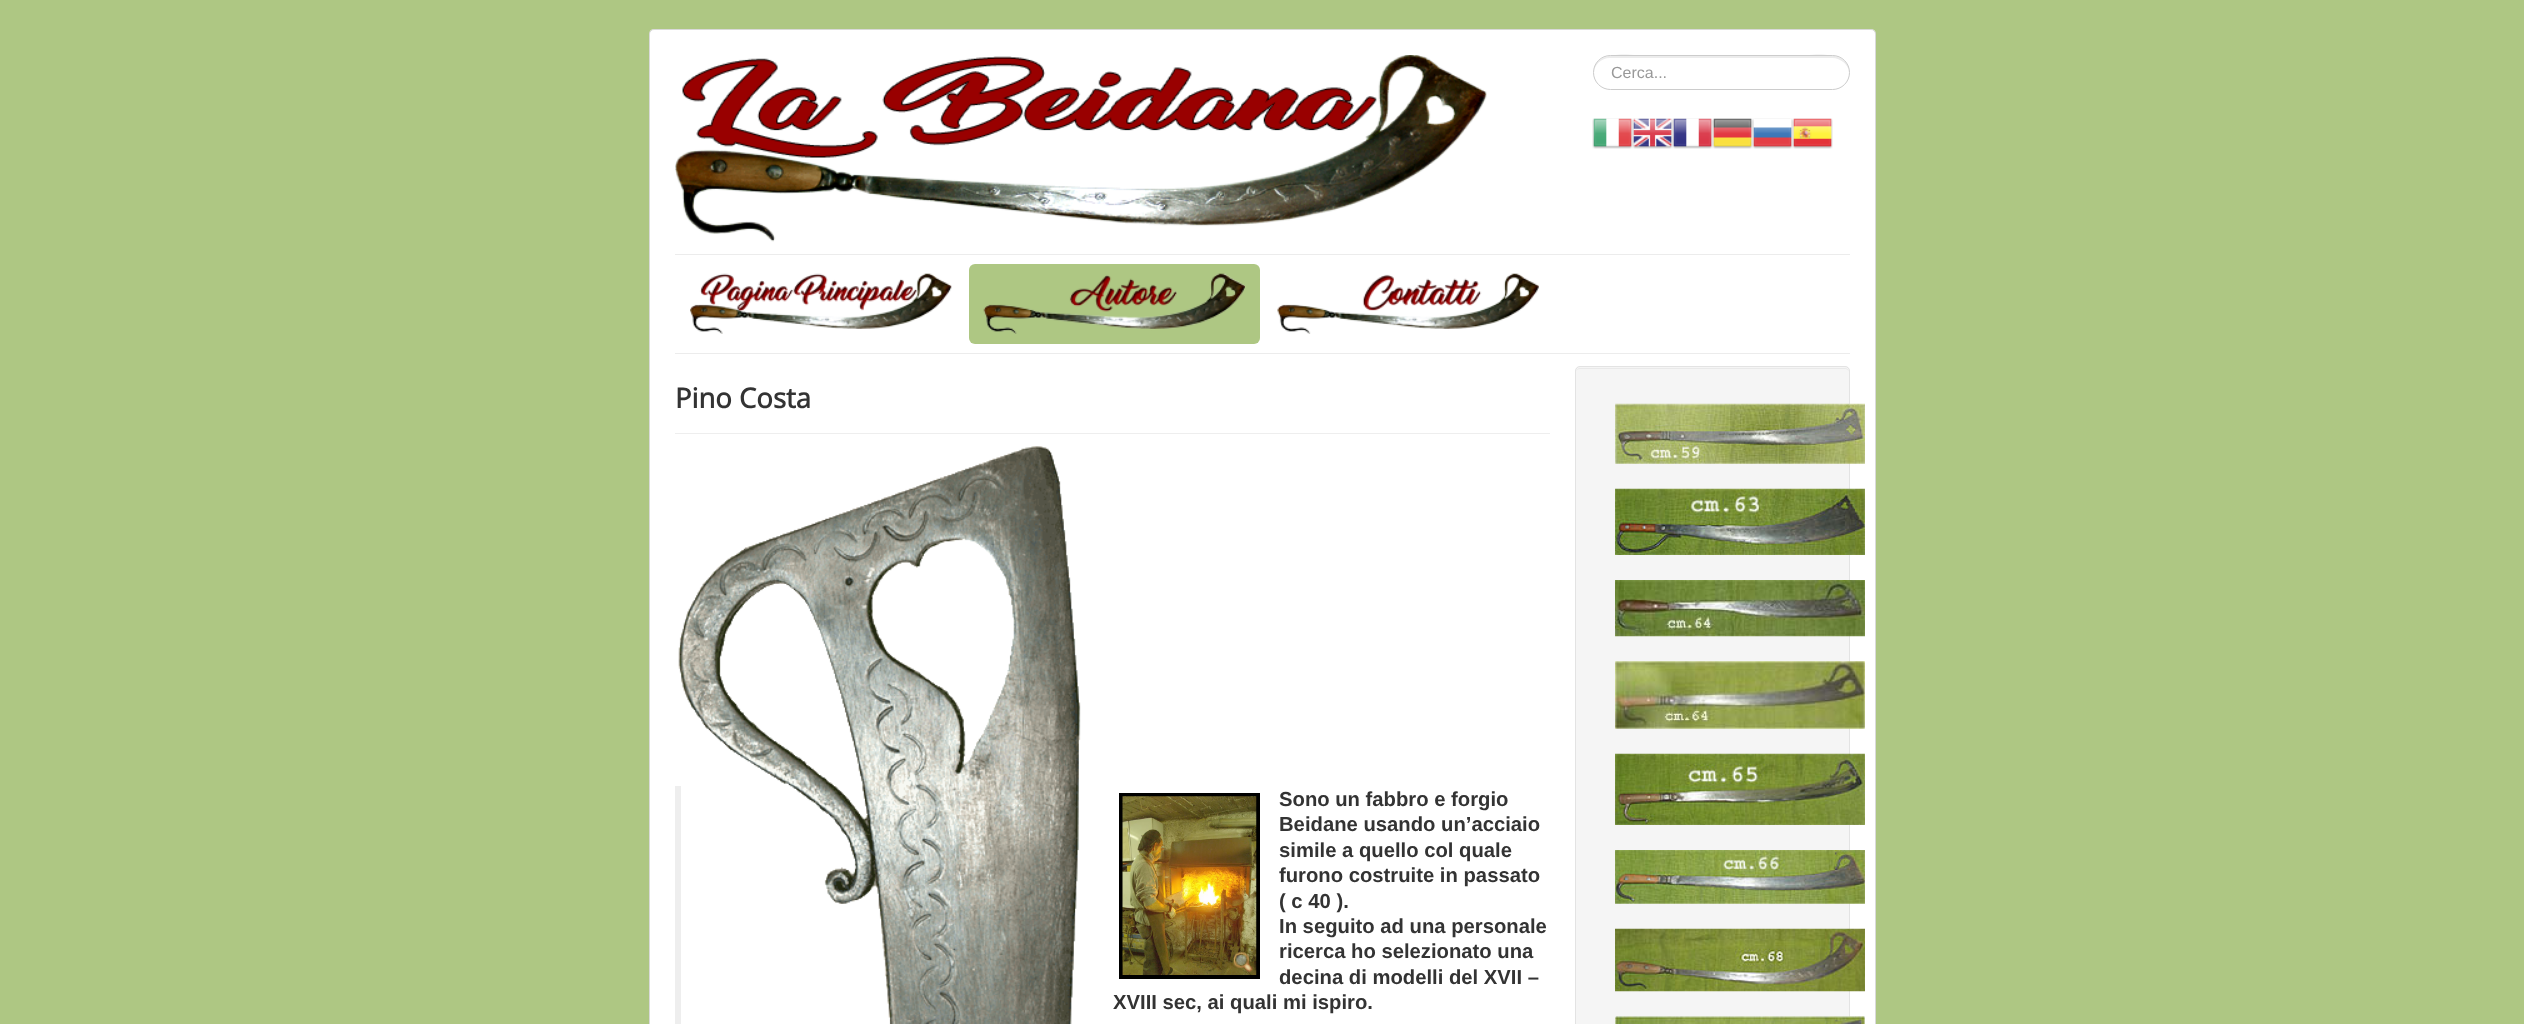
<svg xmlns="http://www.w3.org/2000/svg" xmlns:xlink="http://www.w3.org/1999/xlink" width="2524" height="1024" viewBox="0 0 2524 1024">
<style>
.cls-1{font:16px Liberation Sans;fill:#999999}
.cls-2{font:bold 27.5px Open Sans;fill:#333333}
.cls-3{font:bold 20.25px Liberation Sans;fill:#333333}
</style>
<rect width="100%" height="100%" fill="#aec783"/>
<rect fill="#ffffff" x="649" y="29" width="1227" height="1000" rx="5"/>
<rect fill="none" stroke="#000000" stroke-opacity="0.15" x="649.5" y="29.5" width="1226" height="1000" rx="4.5"/>
<image xlink:href="image0.png" x="675" y="55" width="812" height="187"/>
<path fill="#ececec" d="M1610 58H1832C1841 58 1849 65 1849 73C1850 47 1806 56 1796 56H1648C1637 56 1593 47 1594 73C1594 65 1601 58 1610 58Z"/>
<rect fill="none" stroke="#cccccc" x="1593.5" y="55.5" width="256" height="34" rx="17"/>
<image xlink:href="image1.png" x="1592" y="118" width="41" height="31"/>
<image xlink:href="image2.png" x="1632" y="118" width="41" height="31"/>
<image xlink:href="image3.png" x="1672" y="118" width="41" height="31"/>
<image xlink:href="image4.png" x="1712" y="118" width="41" height="31"/>
<image xlink:href="image5.png" x="1752" y="118" width="41" height="31"/>
<image xlink:href="image6.png" x="1792" y="118" width="41" height="31"/>
<rect fill="#ececec" x="675" y="254" width="1175" height="1"/>
<rect fill="#ececec" x="675" y="353" width="1175" height="1"/>
<image xlink:href="image7.png" x="690" y="273" width="262" height="61"/>
<rect fill="#aec783" x="969" y="264" width="291" height="80" rx="6"/>
<image xlink:href="image8.png" x="983" y="273" width="262" height="61"/>
<image xlink:href="image9.png" x="1277" y="273" width="262" height="61"/>
<rect fill="#eeeeee" x="675" y="433" width="875" height="1"/>
<rect fill="#eeeeee" x="675" y="786" width="6" height="238"/>
<image xlink:href="image10.png" x="678" y="446" width="403" height="578"/>
<rect fill="none" stroke="#000000" stroke-width="4" x="1121" y="795" width="137" height="182"/>
<image xlink:href="image11.png" x="1122" y="796" width="135" height="179"/>
<image xlink:href="image12.png" x="1233" y="952" width="20" height="21"/>
<rect fill="#f5f5f5" x="1575" y="366" width="275" height="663" rx="5"/>
<path fill="#e9e9e9" d="M1580 369H1846L1849 371V372C1849 370 1847 368 1845 368H1580C1578 368 1576 370 1576 372C1576 370 1578 369 1580 369Z"/>
<rect fill="none" stroke="#e3e3e3" x="1575.5" y="366.5" width="274" height="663" rx="4.5"/>
<image xlink:href="image13.png" x="1615" y="403" width="250" height="61"/>
<image xlink:href="image14.png" x="1615" y="488" width="250" height="67"/>
<image xlink:href="image15.png" x="1615" y="580" width="250" height="57"/>
<image xlink:href="image16.png" x="1615" y="661" width="250" height="68"/>
<image xlink:href="image17.png" x="1615" y="753" width="250" height="72"/>
<image xlink:href="image18.png" x="1615" y="850" width="250" height="54"/>
<image xlink:href="image19.png" x="1615" y="928" width="250" height="64"/>
<image xlink:href="image20.png" x="1615" y="1016" width="250" height="8"/>
<text class="cls-1" x="1611" y="78">Cerca...</text>
<text class="cls-2" x="675" y="408">Pino Costa</text>
<text class="cls-3"><tspan x="1279" y="806">Sono un fabbro e forgio</tspan><tspan x="1279" y="831">Beidane usando un’acciaio</tspan><tspan x="1279" y="857">simile a quello col quale</tspan><tspan x="1279" y="882">furono costruite in passato</tspan><tspan x="1279" y="908">( c 40 ).</tspan><tspan x="1279" y="933">In seguito ad una personale</tspan><tspan x="1279" y="958">ricerca ho selezionato una</tspan><tspan x="1279" y="984">decina di modelli del XVII –</tspan></text>
<text class="cls-3" x="1113" y="1009">XVIII sec, ai quali mi ispiro.</text>
</svg>
